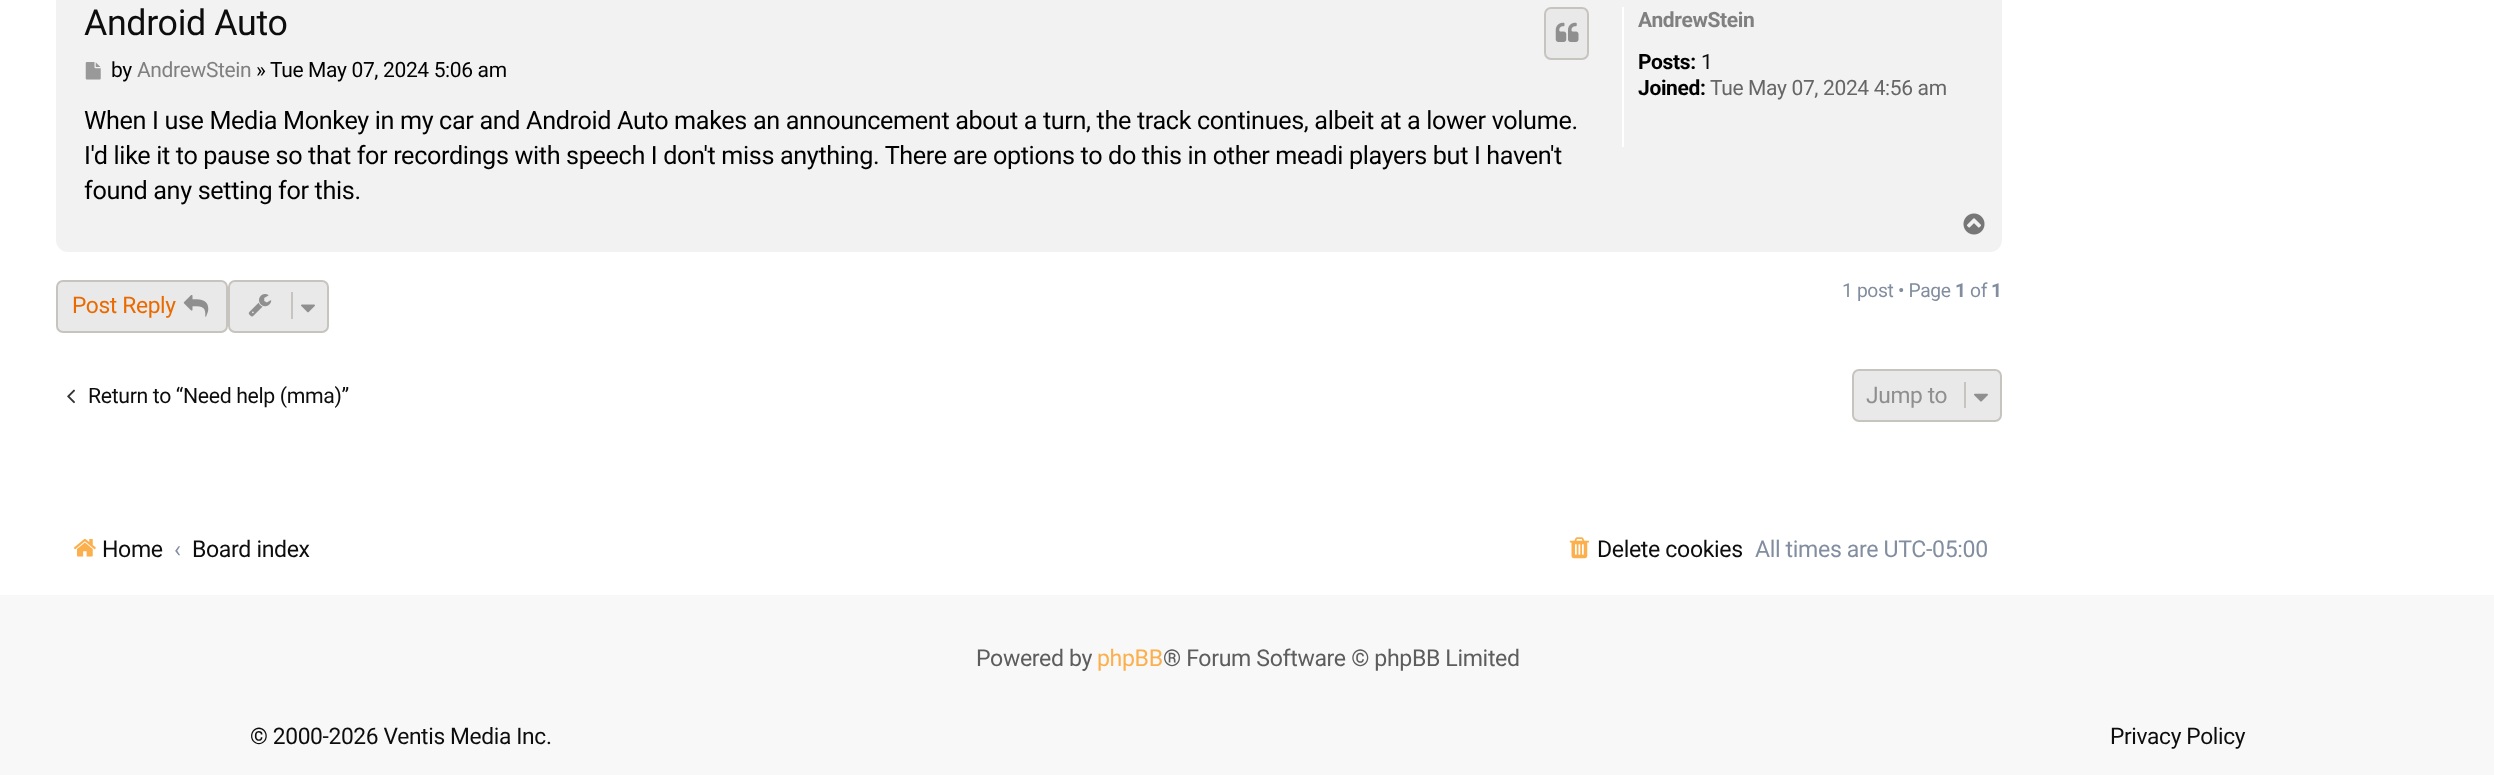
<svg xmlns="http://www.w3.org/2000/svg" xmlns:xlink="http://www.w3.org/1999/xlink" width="2494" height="775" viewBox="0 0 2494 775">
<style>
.cls-1{font:35.75px Roboto;letter-spacing:-0.35px;fill:#0d0d0d}
.cls-2{font:21px Roboto;letter-spacing:-0.35px;fill:#000000}
.cls-3{font:21px Roboto;letter-spacing:-0.35px;fill:#808080}
.cls-4{font:25.2px Roboto;letter-spacing:-0.35px;fill:#000000}
.cls-5{font:bold 21px Roboto;letter-spacing:-0.35px;fill:#808080}
.cls-6{font:bold 21px Roboto;letter-spacing:-0.35px;fill:#000000}
.cls-7{font:21px Roboto;letter-spacing:-0.35px;fill:#0d0d0d}
.cls-8{font:21px Roboto;letter-spacing:-0.35px;fill:#666666}
.cls-9{font:19.25px Roboto;letter-spacing:-0.35px;fill:#828ea0}
.cls-10{font:bold 19.25px Roboto;letter-spacing:-0.35px;fill:#828ea0}
.cls-11{font:22.75px Roboto;letter-spacing:-0.35px;fill:#eb6a00}
.cls-12{font:21.25px Roboto;letter-spacing:-0.35px;fill:#0d0d0d}
.cls-13{font:22.75px Roboto;letter-spacing:-0.35px;fill:#8f8f8f}
.cls-14{font:23.1px Roboto;letter-spacing:-0.35px;fill:#0d0d0d}
.cls-15{font:23.1px Roboto;letter-spacing:-0.35px;fill:#828ea0}
.cls-16{font:23.1px Roboto;letter-spacing:-0.35px;fill:#5d5d5d}
.cls-17{font:23.1px Roboto;letter-spacing:-0.35px;fill:#fcaf4d}
.cls-18{font:22.75px Roboto;letter-spacing:-0.35px;fill:#0d0d0d}
</style>
<rect width="100%" height="100%" fill="#ffffff"/>
<rect fill="#f2f2f2" x="56" y="-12" width="1946" height="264" rx="12"/>
<rect fill="#e9e9e9" stroke="#c7c3bf" stroke-width="2" x="1545" y="8" width="43" height="51" rx="6"/>
<image xlink:href="image0.png" x="1555" y="22" width="24" height="20"/>
<image xlink:href="image1.png" x="85" y="62" width="16" height="18"/>
<rect fill="#ffffff" x="1622" y="7" width="2" height="140"/>
<image xlink:href="image2.png" x="1963" y="213" width="22" height="22"/>
<rect fill="#e9e9e9" stroke="#c7c3bf" stroke-width="2" x="229" y="281" width="99" height="51" rx="6"/>
<image xlink:href="image3.png" x="248" y="294" width="24" height="23"/>
<rect fill="#c7c3bf" x="291" y="292" width="2" height="27"/>
<image xlink:href="image4.png" x="301" y="304" width="14" height="9"/>
<rect fill="#e9e9e9" stroke="#c7c3bf" stroke-width="2" x="57" y="281" width="170" height="51" rx="6"/>
<image xlink:href="image5.png" x="183" y="295" width="26" height="22"/>
<image xlink:href="image6.png" x="67" y="389" width="8" height="15"/>
<rect fill="#e9e9e9" stroke="#c7c3bf" stroke-width="2" x="1853" y="370" width="148" height="51" rx="6"/>
<rect fill="#c7c3bf" x="1964" y="382" width="2" height="26"/>
<image xlink:href="image7.png" x="1974" y="393" width="14" height="9"/>
<image xlink:href="image8.png" x="73" y="539" width="23" height="18"/>
<image xlink:href="image9.png" x="1569" y="537" width="20" height="22"/>
<rect fill="#f8f8f8" x="0" y="595" width="2494" height="180"/>
<text class="cls-1" x="84" y="35">Android Auto</text>
<text class="cls-2" x="111" y="77">by</text>
<text class="cls-3" x="137" y="77">AndrewStein</text>
<text class="cls-2" x="256" y="77">»</text>
<text class="cls-2" x="270" y="77">Tue May 07, 2024 5:06 am</text>
<text class="cls-4"><tspan x="84" y="129">When I use Media Monkey in my car and Android Auto makes an announcement about a turn, the track continues, albeit at a lower volume.</tspan><tspan x="84" y="164">I'd like it to pause so that for recordings with speech I don't miss anything. There are options to do this in other meadi players but I haven't</tspan><tspan x="84" y="199">found any setting for this.</tspan></text>
<text class="cls-5" x="1638" y="27">AndrewStein</text>
<text class="cls-6" x="1638" y="69">Posts:</text>
<text class="cls-7" x="1701" y="69">1</text>
<text class="cls-6" x="1638" y="95">Joined:</text>
<text class="cls-8" x="1710" y="95">Tue May 07, 2024 4:56 am</text>
<text class="cls-9" x="1842" y="297">1 post • Page</text>
<text class="cls-10" x="1955" y="297">1</text>
<text class="cls-9" x="1970" y="297">of</text>
<text class="cls-10" x="1991" y="297">1</text>
<text class="cls-11" x="72" y="313">Post Reply</text>
<text class="cls-12" x="88" y="403">Return to “Need help (mma)”</text>
<text class="cls-13" x="1866" y="403">Jump to</text>
<text class="cls-14" x="102" y="557">Home</text>
<text class="cls-15" x="174" y="557">‹</text>
<text class="cls-14" x="192" y="557">Board index</text>
<text class="cls-14" x="1597" y="557">Delete cookies</text>
<text class="cls-15" x="1755" y="557">All times are UTC-05:00</text>
<text class="cls-16" x="976" y="666">Powered by</text>
<text class="cls-17" x="1097" y="666">phpBB</text>
<text class="cls-16" x="1163" y="666">® Forum Software © phpBB Limited</text>
<text class="cls-18" x="250" y="744">© 2000-2026 Ventis Media Inc.</text>
<text class="cls-18" x="2110" y="744">Privacy Policy</text>
</svg>
